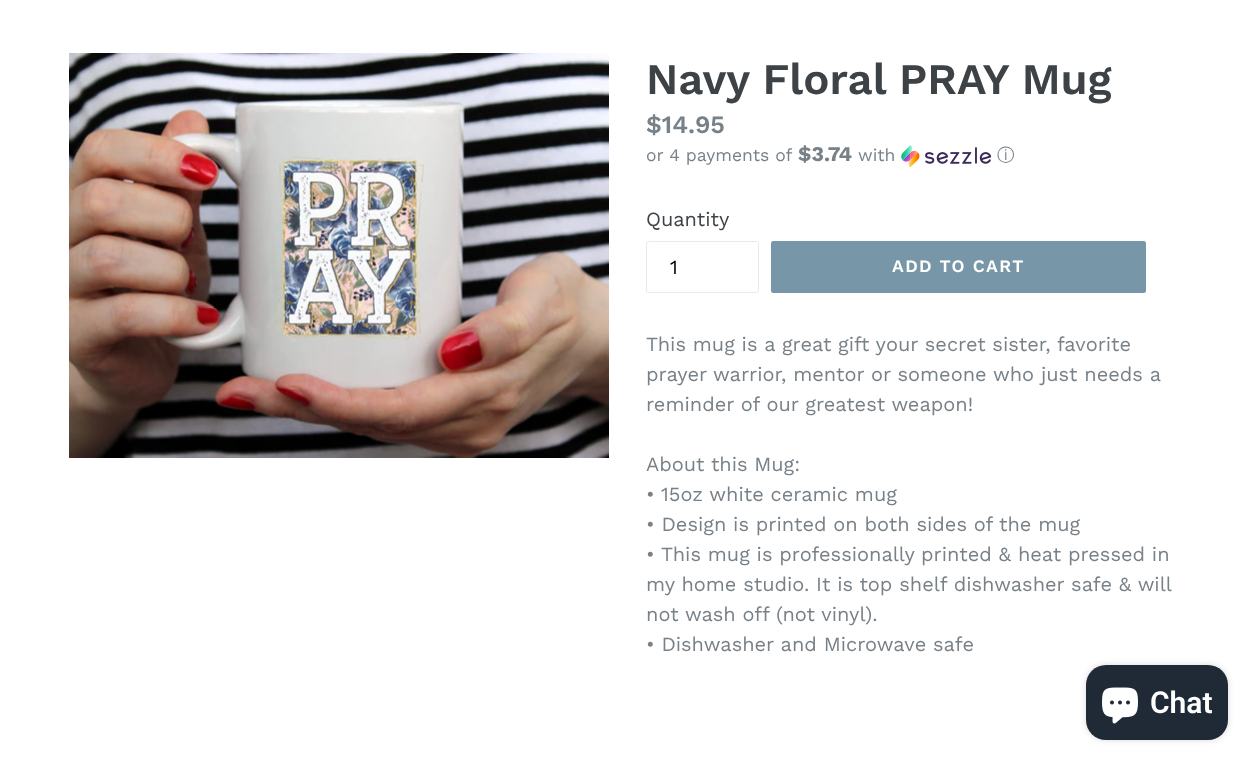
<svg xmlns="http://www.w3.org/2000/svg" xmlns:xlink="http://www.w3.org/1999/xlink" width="1254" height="766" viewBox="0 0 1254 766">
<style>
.cls-1{font:600 43.75px Work Sans;fill:#3d4246}
.cls-2{font:600 25px Work Sans;fill:#788188}
.cls-3{font:17.5px Work Sans;fill:#788188}
.cls-4{font:bold 21px Work Sans;fill:#788188}
.cls-5{font:500 17.5px WenQuanYi Zen Hei;fill:#788188}
.cls-6{font:20px Work Sans;fill:#3d4246}
.cls-7{font:20px Work Sans;fill:#000000}
.cls-8{font:600 17.5px Work Sans;letter-spacing:1.4px;fill:#ffffff}
.cls-9{font:20px Work Sans;fill:#788188}
.cls-10{font:600 30px Roboto;fill:#ffffff}
</style>
<rect width="100%" height="100%" fill="#ffffff"/>
<image xlink:href="image0.png" x="69" y="53" width="540" height="405"/>
<image xlink:href="image1.png" x="901" y="145" width="90" height="23"/>
<rect fill="none" stroke="#e8e9eb" x="646.5" y="241.5" width="112" height="51" rx="2"/>
<rect fill="#7796a8" x="771" y="241" width="375" height="52" rx="2.5"/>
<rect fill="#000000" fill-opacity="0.15" filter="blur(3px)" x="1086" y="665" width="142" height="75" rx="20"/>
<rect fill="#202a36" x="1086" y="665" width="142" height="75" rx="20"/>
<image xlink:href="image2.png" x="1102" y="687" width="36" height="37"/>
<text class="cls-1" x="646" y="94">Navy Floral PRAY Mug</text>
<text class="cls-2" x="646" y="133">$14.95</text>
<text class="cls-3" x="646" y="161">or 4 payments of</text>
<text class="cls-4" x="798" y="161">$3.74</text>
<text class="cls-3" x="858" y="161">with</text>
<text class="cls-5" x="997" y="161">ⓘ</text>
<text class="cls-6" x="646" y="226">Quantity</text>
<text class="cls-7" x="670" y="274">1</text>
<text class="cls-8" x="892" y="272">ADD TO CART</text>
<text class="cls-9"><tspan x="646" y="351">This mug is a great gift your secret sister, favorite</tspan><tspan x="646" y="381">prayer warrior, mentor or someone who just needs a</tspan><tspan x="646" y="411">reminder of our greatest weapon!</tspan></text>
<text class="cls-9"><tspan x="646" y="471">About this Mug:</tspan><tspan x="646" y="501">• 15oz white ceramic mug</tspan><tspan x="646" y="531">• Design is printed on both sides of the mug</tspan><tspan x="646" y="561">•</tspan></text>
<text class="cls-9" x="661" y="561">This mug is professionally printed &amp; heat pressed in</text>
<text class="cls-9"><tspan x="646" y="591">my home studio. It is top shelf dishwasher safe &amp; will</tspan><tspan x="646" y="621">not wash off (not vinyl).</tspan><tspan x="646" y="651">• Dishwasher and Microwave safe</tspan></text>
<text class="cls-10" x="1150" y="713">Chat</text>
</svg>
